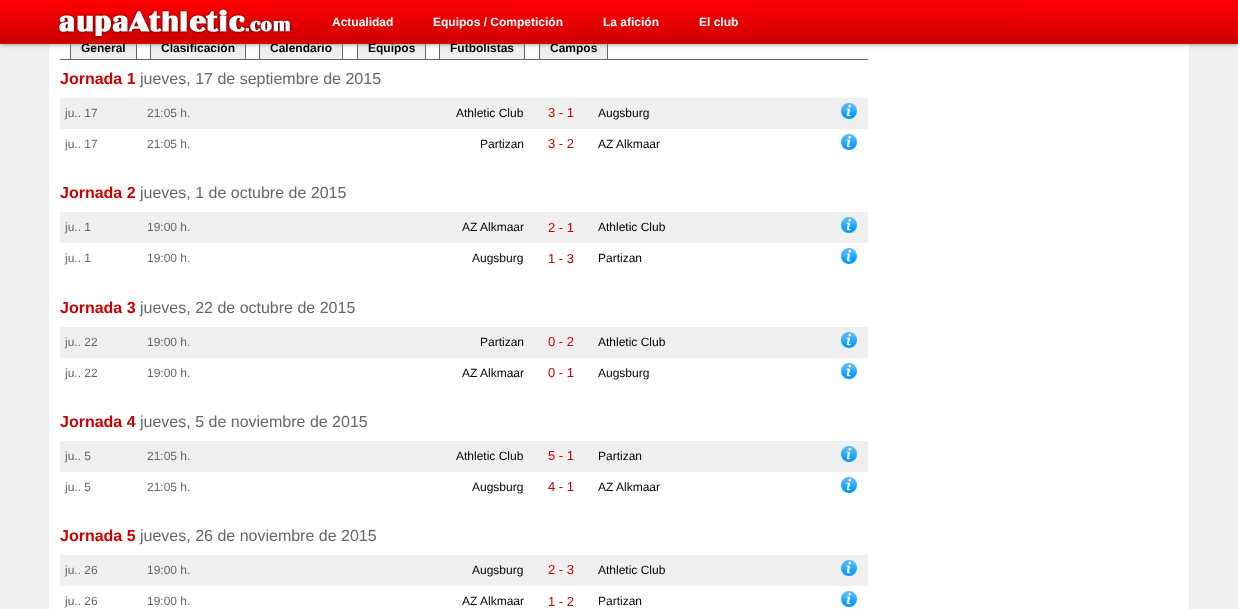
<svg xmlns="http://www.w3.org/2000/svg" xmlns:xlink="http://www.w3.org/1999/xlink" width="1238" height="609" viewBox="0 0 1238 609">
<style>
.cls-1{font:bold 12px Liberation Sans;fill:#000000}
.cls-2{font:bold 12px Liberation Sans;fill:#ffffff}
.cls-3{font:bold 16px Liberation Sans;fill:#cc0000}
.cls-4{font:16px Liberation Sans;fill:#666666}
.cls-5{font:12px Liberation Sans;fill:#666666}
.cls-6{font:12px Liberation Sans;fill:#000000}
.cls-7{font:13px Liberation Sans;fill:#cc0000}
</style>
<defs>
<linearGradient id="g1" gradientUnits="userSpaceOnUse" x1="619" y1="0" x2="619" y2="44"><stop offset="0" stop-color="#ff0000"/><stop offset="1" stop-color="#cc0000"/></linearGradient>
</defs>
<rect width="100%" height="100%" fill="#efefef"/>
<rect fill="#ffffff" x="49" y="44" width="1140" height="565"/>
<rect fill="#efefef" x="71" y="44" width="65" height="15"/>
<path fill="#666666" fill-rule="evenodd" d="M75 36H132C135 36 137 38 137 41V59H70V41C70 38 72 36 75 36ZM75 37H132C134 37 136 39 136 41V59H71V41C71 39 73 37 75 37Z"/>
<rect fill="#efefef" x="151" y="44" width="94" height="15"/>
<path fill="#666666" fill-rule="evenodd" d="M155 36H241C244 36 246 38 246 41V59H150V41C150 38 152 36 155 36ZM155 37H241C243 37 245 39 245 41V59H151V41C151 39 153 37 155 37Z"/>
<rect fill="#efefef" x="260" y="44" width="82" height="15"/>
<path fill="#666666" fill-rule="evenodd" d="M264 36H338C341 36 343 38 343 41V59H259V41C259 38 261 36 264 36ZM264 37H338C340 37 342 39 342 41V59H260V41C260 39 262 37 264 37Z"/>
<rect fill="#efefef" x="358" y="44" width="67" height="15"/>
<path fill="#666666" fill-rule="evenodd" d="M362 36H421C424 36 426 38 426 41V59H357V41C357 38 359 36 362 36ZM362 37H421C423 37 425 39 425 41V59H358V41C358 39 360 37 362 37Z"/>
<rect fill="#efefef" x="440" y="44" width="84" height="15"/>
<path fill="#666666" fill-rule="evenodd" d="M444 36H520C523 36 525 38 525 41V59H439V41C439 38 441 36 444 36ZM444 37H520C522 37 524 39 524 41V59H440V41C440 39 442 37 444 37Z"/>
<rect fill="#efefef" x="540" y="44" width="67" height="15"/>
<path fill="#666666" fill-rule="evenodd" d="M544 36H603C606 36 608 38 608 41V59H539V41C539 38 541 36 544 36ZM544 37H603C605 37 607 39 607 41V59H540V41C540 39 542 37 544 37Z"/>
<rect fill="#888888" filter="blur(2.5px)" x="0" y="0" width="1238" height="44"/>
<rect fill="#666666" x="60" y="59" width="808" height="1"/>
<rect fill="#efefef" x="60" y="98" width="808" height="31"/>
<image xlink:href="image1.png" x="841" y="103" width="16" height="16"/>
<image xlink:href="image2.png" x="841" y="134" width="16" height="16"/>
<rect fill="#efefef" x="60" y="212" width="808" height="31"/>
<image xlink:href="image1.png" x="841" y="217" width="16" height="16"/>
<image xlink:href="image2.png" x="841" y="248" width="16" height="16"/>
<rect fill="#efefef" x="60" y="327" width="808" height="31"/>
<image xlink:href="image1.png" x="841" y="332" width="16" height="16"/>
<image xlink:href="image2.png" x="841" y="363" width="16" height="16"/>
<rect fill="#efefef" x="60" y="441" width="808" height="31"/>
<image xlink:href="image1.png" x="841" y="446" width="16" height="16"/>
<image xlink:href="image2.png" x="841" y="477" width="16" height="16"/>
<rect fill="#efefef" x="60" y="555" width="808" height="31"/>
<image xlink:href="image1.png" x="841" y="560" width="16" height="16"/>
<image xlink:href="image2.png" x="841" y="591" width="16" height="16"/>
<text class="cls-1" x="81" y="52">General</text>
<text class="cls-1" x="161" y="52">Clasificación</text>
<text class="cls-1" x="270" y="52">Calendario</text>
<text class="cls-1" x="368" y="52">Equipos</text>
<text class="cls-1" x="450" y="52">Futbolistas</text>
<text class="cls-1" x="550" y="52">Campos</text>
<rect fill="url(#g1)" x="0" y="0" width="1238" height="44"/>
<text class="cls-2" x="699" y="26">El club</text>
<text class="cls-2" x="603" y="26">La afición</text>
<text class="cls-2" x="433" y="26">Equipos / Competición</text>
<text class="cls-2" x="332" y="26">Actualidad</text>
<image xlink:href="image0.png" x="57" y="8" width="235" height="30"/>
<text class="cls-3" x="60" y="84">Jornada 1</text>
<text class="cls-4" x="140" y="84">jueves, 17 de septiembre de 2015</text>
<text class="cls-5" x="65" y="117">ju.. 17</text>
<text class="cls-5" x="147" y="117">21:05 h.</text>
<text class="cls-6" x="456" y="117">Athletic Club</text>
<text class="cls-7" x="548" y="117">3 - 1</text>
<text class="cls-6" x="598" y="117">Augsburg</text>
<text class="cls-5" x="65" y="148">ju.. 17</text>
<text class="cls-5" x="147" y="148">21:05 h.</text>
<text class="cls-6" x="480" y="148">Partizan</text>
<text class="cls-7" x="548" y="148">3 - 2</text>
<text class="cls-6" x="598" y="148">AZ Alkmaar</text>
<text class="cls-3" x="60" y="198">Jornada 2</text>
<text class="cls-4" x="140" y="198">jueves, 1 de octubre de 2015</text>
<text class="cls-5" x="65" y="231">ju.. 1</text>
<text class="cls-5" x="147" y="231">19:00 h.</text>
<text class="cls-6" x="462" y="231">AZ Alkmaar</text>
<text class="cls-7" x="548" y="232">2 - 1</text>
<text class="cls-6" x="598" y="231">Athletic Club</text>
<text class="cls-5" x="65" y="262">ju.. 1</text>
<text class="cls-5" x="147" y="262">19:00 h.</text>
<text class="cls-6" x="472" y="262">Augsburg</text>
<text class="cls-7" x="548" y="263">1 - 3</text>
<text class="cls-6" x="598" y="262">Partizan</text>
<text class="cls-3" x="60" y="313">Jornada 3</text>
<text class="cls-4" x="140" y="313">jueves, 22 de octubre de 2015</text>
<text class="cls-5" x="65" y="346">ju.. 22</text>
<text class="cls-5" x="147" y="346">19:00 h.</text>
<text class="cls-6" x="480" y="346">Partizan</text>
<text class="cls-7" x="548" y="346">0 - 2</text>
<text class="cls-6" x="598" y="346">Athletic Club</text>
<text class="cls-5" x="65" y="377">ju.. 22</text>
<text class="cls-5" x="147" y="377">19:00 h.</text>
<text class="cls-6" x="462" y="377">AZ Alkmaar</text>
<text class="cls-7" x="548" y="377">0 - 1</text>
<text class="cls-6" x="598" y="377">Augsburg</text>
<text class="cls-3" x="60" y="427">Jornada 4</text>
<text class="cls-4" x="140" y="427">jueves, 5 de noviembre de 2015</text>
<text class="cls-5" x="65" y="460">ju.. 5</text>
<text class="cls-5" x="147" y="460">21:05 h.</text>
<text class="cls-6" x="456" y="460">Athletic Club</text>
<text class="cls-7" x="548" y="460">5 - 1</text>
<text class="cls-6" x="598" y="460">Partizan</text>
<text class="cls-5" x="65" y="491">ju.. 5</text>
<text class="cls-5" x="147" y="491">21:05 h.</text>
<text class="cls-6" x="472" y="491">Augsburg</text>
<text class="cls-7" x="548" y="491">4 - 1</text>
<text class="cls-6" x="598" y="491">AZ Alkmaar</text>
<text class="cls-3" x="60" y="541">Jornada 5</text>
<text class="cls-4" x="140" y="541">jueves, 26 de noviembre de 2015</text>
<text class="cls-5" x="65" y="574">ju.. 26</text>
<text class="cls-5" x="147" y="574">19:00 h.</text>
<text class="cls-6" x="472" y="574">Augsburg</text>
<text class="cls-7" x="548" y="574">2 - 3</text>
<text class="cls-6" x="598" y="574">Athletic Club</text>
<text class="cls-5" x="65" y="605">ju.. 26</text>
<text class="cls-5" x="147" y="605">19:00 h.</text>
<text class="cls-6" x="462" y="605">AZ Alkmaar</text>
<text class="cls-7" x="548" y="606">1 - 2</text>
<text class="cls-6" x="598" y="605">Partizan</text>
</svg>
